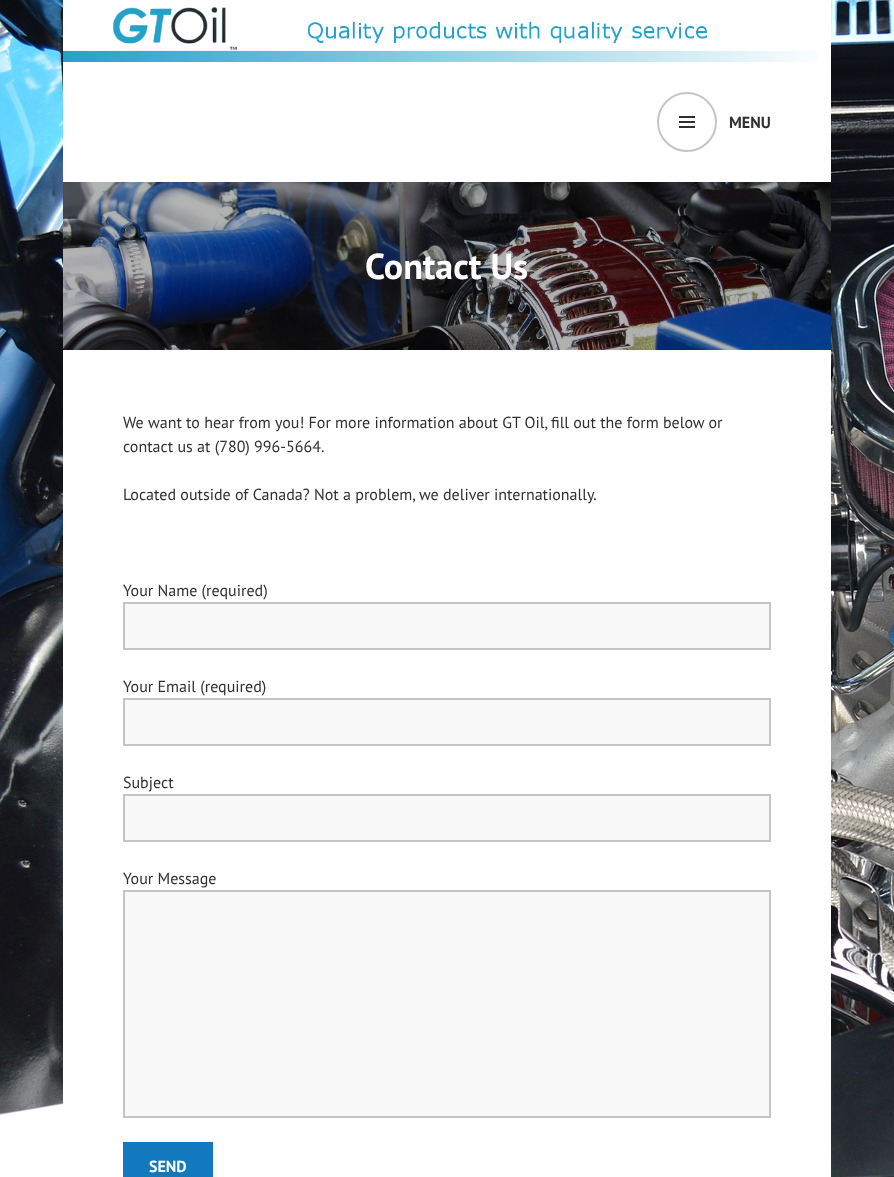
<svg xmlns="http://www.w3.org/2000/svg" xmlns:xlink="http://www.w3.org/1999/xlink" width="894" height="1177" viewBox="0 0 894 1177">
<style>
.cls-1{font:bold 16px PT Sans;fill:#303030}
.cls-2{font:bold 36px PT Sans;fill:#ffffff}
.cls-3{font:16px PT Sans;fill:#303030}
.cls-4{font:bold 16px PT Sans;fill:#ffffff}
</style>
<rect width="100%" height="100%" fill="#ffffff"/>
<image xlink:href="image0.png" x="0" y="0" width="894" height="1177"/>
<rect fill="#ffffff" x="63" y="0" width="768" height="182"/>
<image xlink:href="image1.png" x="63" y="7" width="755" height="55"/>
<circle fill="none" stroke="#c5c5c5" stroke-width="2" cx="687" cy="122" r="29"/>
<image xlink:href="image2.png" x="679" y="116" width="16" height="12"/>
<rect fill="#ffffff" x="63" y="350" width="768" height="827"/>
<image xlink:href="image3.png" x="63" y="182" width="768" height="168"/>
<rect fill="#f8f8f8" stroke="#c5c5c5" stroke-width="2" x="124" y="603" width="646" height="46"/>
<rect fill="#f8f8f8" stroke="#c5c5c5" stroke-width="2" x="124" y="699" width="646" height="46"/>
<rect fill="#f8f8f8" stroke="#c5c5c5" stroke-width="2" x="124" y="795" width="646" height="46"/>
<rect fill="#f8f8f8" stroke="#c5c5c5" stroke-width="2" x="124" y="891" width="646" height="226"/>
<rect fill="#1279be" x="123" y="1142" width="90" height="35"/>
<text class="cls-1" x="729" y="128">MENU</text>
<text class="cls-2" x="365" y="279">Contact Us</text>
<text class="cls-3"><tspan x="123" y="428">We want to hear from you! For more information about GT Oil, fill out the form below or</tspan><tspan x="123" y="452">contact us at (780) 996-5664.</tspan></text>
<text class="cls-3" x="123" y="500">Located outside of Canada? Not a problem, we deliver internationally.</text>
<text class="cls-3" x="123" y="596">Your Name (required)</text>
<text class="cls-3" x="123" y="692">Your Email (required)</text>
<text class="cls-3" x="123" y="788">Subject</text>
<text class="cls-3" x="123" y="884">Your Message</text>
<text class="cls-4" x="149" y="1172">SEND</text>
</svg>
